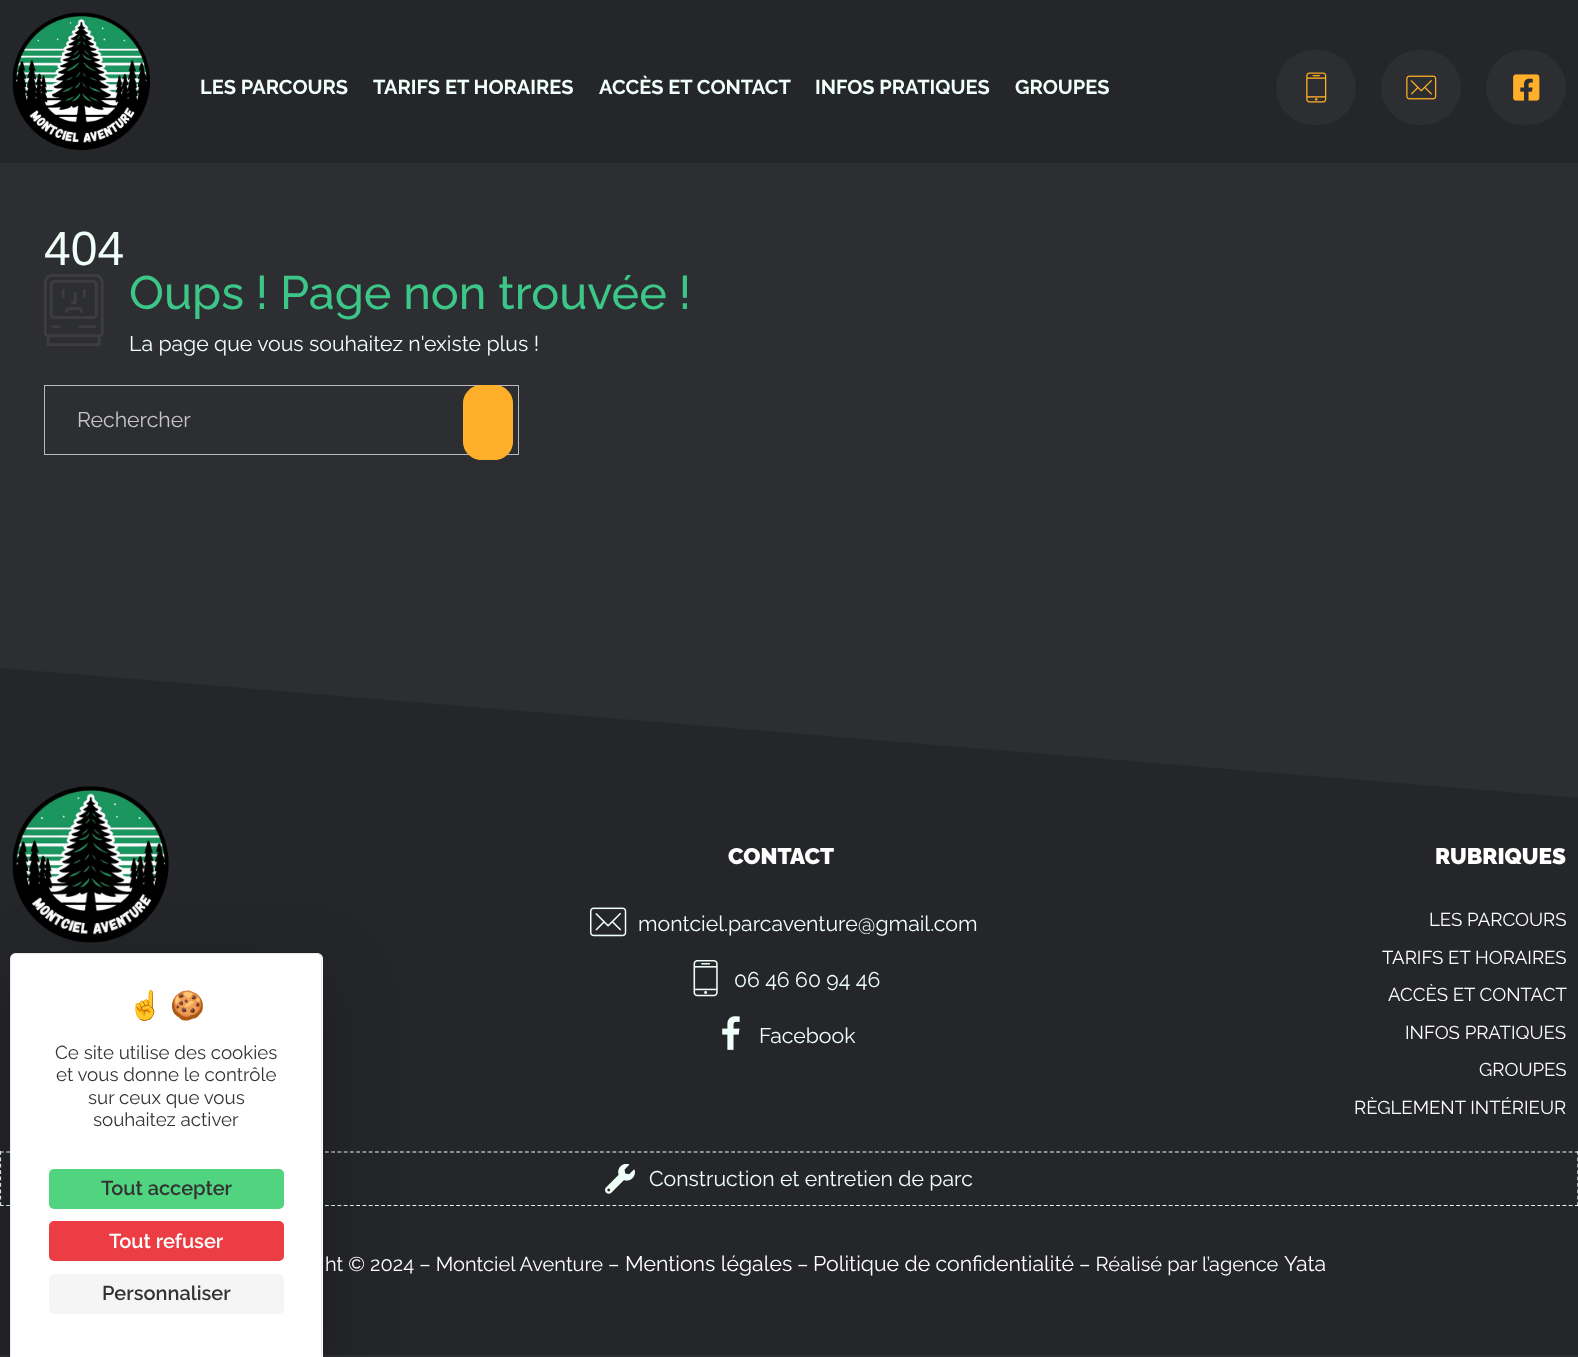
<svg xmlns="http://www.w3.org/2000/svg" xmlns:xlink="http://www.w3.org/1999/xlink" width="1578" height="1357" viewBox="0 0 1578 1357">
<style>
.cls-1{font:bold 20px Raleway;fill:#f1fff9}
.cls-2{font:48px Liberation Sans;fill:#f1fff9}
.cls-3{font:500 46.75px Raleway;fill:#3cc688}
.cls-4{font:21.25px Raleway;fill:#f1fff9}
.cls-5{font:21.25px Raleway;fill:#c5c5c5}
.cls-6{font:900 22.5px Raleway;fill:#ffffff}
.cls-7{font:18.6px Raleway;fill:#ffffff}
.cls-8{font:20px Raleway;fill:#ffffff}
.cls-9{font:21.25px Raleway;fill:#ffffff}
.cls-10{font:28px Noto Color Emoji;fill:#333333}
.cls-11{font:18.75px Raleway;fill:#333333}
.cls-12{font:600 20px Raleway;fill:#333333}
.cls-13{font:600 20px Raleway;fill:#ffffff}
</style>
<rect width="100%" height="100%" fill="#2d2e32"/>
<rect fill="#25262a" x="0" y="0" width="1578" height="163"/>
<image xlink:href="image0.png" x="12" y="12" width="138" height="138"/>
<rect fill="#2d2e32" x="1276" y="50" width="80" height="75" rx="37.5"/>
<image xlink:href="image1.png" x="1306" y="72" width="21" height="31"/>
<rect fill="#2d2e32" x="1381" y="50" width="80" height="75" rx="37.5"/>
<image xlink:href="image2.png" x="1406" y="75" width="31" height="25"/>
<rect fill="#2d2e32" x="1486" y="50" width="80" height="75" rx="37.5"/>
<image xlink:href="image3.png" x="1513" y="74" width="27" height="27"/>
<image xlink:href="image4.png" x="44" y="274" width="60" height="72"/>
<rect fill="none" stroke="#bbbbbb" x="44.5" y="385.5" width="474" height="69"/>
<rect fill="#ffaf29" stroke="#ffaf29" x="463.5" y="385.5" width="49" height="74" rx="17.5"/>
<rect fill="#25262a" x="0" y="668" width="1578" height="538"/>
<image xlink:href="image5.png" x="12" y="786" width="157" height="157"/>
<path fill="#2d2e32" d="M0 668V660H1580V798Z"/>
<image xlink:href="image6.png" x="590" y="907" width="37" height="30"/>
<image xlink:href="image7.png" x="693" y="960" width="25" height="37"/>
<image xlink:href="image8.png" x="722" y="1016" width="18" height="34"/>
<path fill="none" stroke="#f1fff9" stroke-width="1.2" stroke-dasharray="3.75 2.5" d="M0 1152H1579"/>
<path fill="none" stroke="#f1fff9" stroke-width="1.2" stroke-dasharray="3.75 2.65" d="M1578 1151V1206"/>
<path fill="none" stroke="#f1fff9" stroke-width="1.2" stroke-dasharray="3.75 2.5" d="M0 1205.5H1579"/>
<path fill="none" stroke="#f1fff9" stroke-width="1.2" stroke-dasharray="3.75 2.65" d="M.5 1151V1206"/>
<image xlink:href="image9.png" x="605" y="1164" width="30" height="30"/>
<rect fill="#25262a" x="0" y="1206" width="1578" height="149"/>
<rect fill="#000000" fill-opacity="0.25" filter="blur(37.5px)" x="10" y="978" width="313" height="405" rx="6"/>
<path fill="#ffffff" d="M16 953H317C320.5 953 323 955.5 323 959V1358H10V959C10 955.5 12.5 953 16 953Z"/>
<path fill="#000000" fill-opacity="0.08" fill-rule="evenodd" d="M16 952H316C320 952 322 955 322 959V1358H10V959C10 955 13 952 16 952ZM16 954H316C319 954 321 956 321 959V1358H11V959C11 956 13 954 16 954Z"/>
<rect fill="#51d47f" x="49" y="1169" width="235" height="40" rx="5"/>
<rect fill="#eb3d43" x="49" y="1221" width="235" height="40" rx="5"/>
<rect fill="#f5f5f5" x="49" y="1274" width="235" height="40" rx="5"/>
<text class="cls-1" x="200" y="94">LES PARCOURS</text>
<text class="cls-1" x="373" y="94">TARIFS ET HORAIRES</text>
<text class="cls-1" x="599" y="94">ACCÈS ET CONTACT</text>
<text class="cls-1" x="815" y="94">INFOS PRATIQUES</text>
<text class="cls-1" x="1015" y="94">GROUPES</text>
<text class="cls-2" x="44" y="265">404</text>
<text class="cls-3" x="129" y="309">Oups ! Page non trouvée !</text>
<text class="cls-4" x="129" y="351">La page que vous souhaitez n'existe plus !</text>
<text class="cls-5" x="77" y="427">Rechercher</text>
<text class="cls-6" x="728" y="864">CONTACT</text>
<text class="cls-4" x="638" y="931">montciel.parcaventure@gmail.com</text>
<text class="cls-4" x="734" y="987">06 46 60 94 46</text>
<text class="cls-4" x="759" y="1043">Facebook</text>
<text class="cls-6" x="1435" y="864">RUBRIQUES</text>
<text class="cls-7" x="1429" y="926">LES PARCOURS</text>
<text class="cls-7" x="1382" y="964">TARIFS ET HORAIRES</text>
<text class="cls-7" x="1388" y="1001">ACCÈS ET CONTACT</text>
<text class="cls-7" x="1405" y="1039">INFOS PRATIQUES</text>
<text class="cls-7" x="1479" y="1076">GROUPES</text>
<text class="cls-7" x="1354" y="1114">RÈGLEMENT INTÉRIEUR</text>
<text class="cls-4" x="649" y="1186">Construction et entretien de parc</text>
<text class="cls-8" x="325" y="1271">ht © 2024 – Montciel Aventure –</text>
<text class="cls-9" x="625" y="1271">Mentions légales</text>
<text class="cls-8" x="797" y="1271">–</text>
<text class="cls-9" x="813" y="1271">Politique de confidentialité</text>
<text class="cls-8" x="1079" y="1271">– Réalisé par l’agence</text>
<text class="cls-9" x="1284" y="1271">Yata</text>
<text class="cls-10" x="128" y="1015">☝️</text>
<text class="cls-10" x="170" y="1015">🍪</text>
<text class="cls-11" x="55" y="1059">Ce site utilise des cookies</text>
<text class="cls-11" x="56" y="1081">et vous donne le contrôle</text>
<text class="cls-11" x="88" y="1104">sur ceux que vous</text>
<text class="cls-11" x="93" y="1126">souhaitez activer</text>
<text class="cls-12" x="101" y="1195">Tout accepter</text>
<text class="cls-13" x="109" y="1248">Tout refuser</text>
<text class="cls-12" x="102" y="1300">Personnaliser</text>
</svg>
